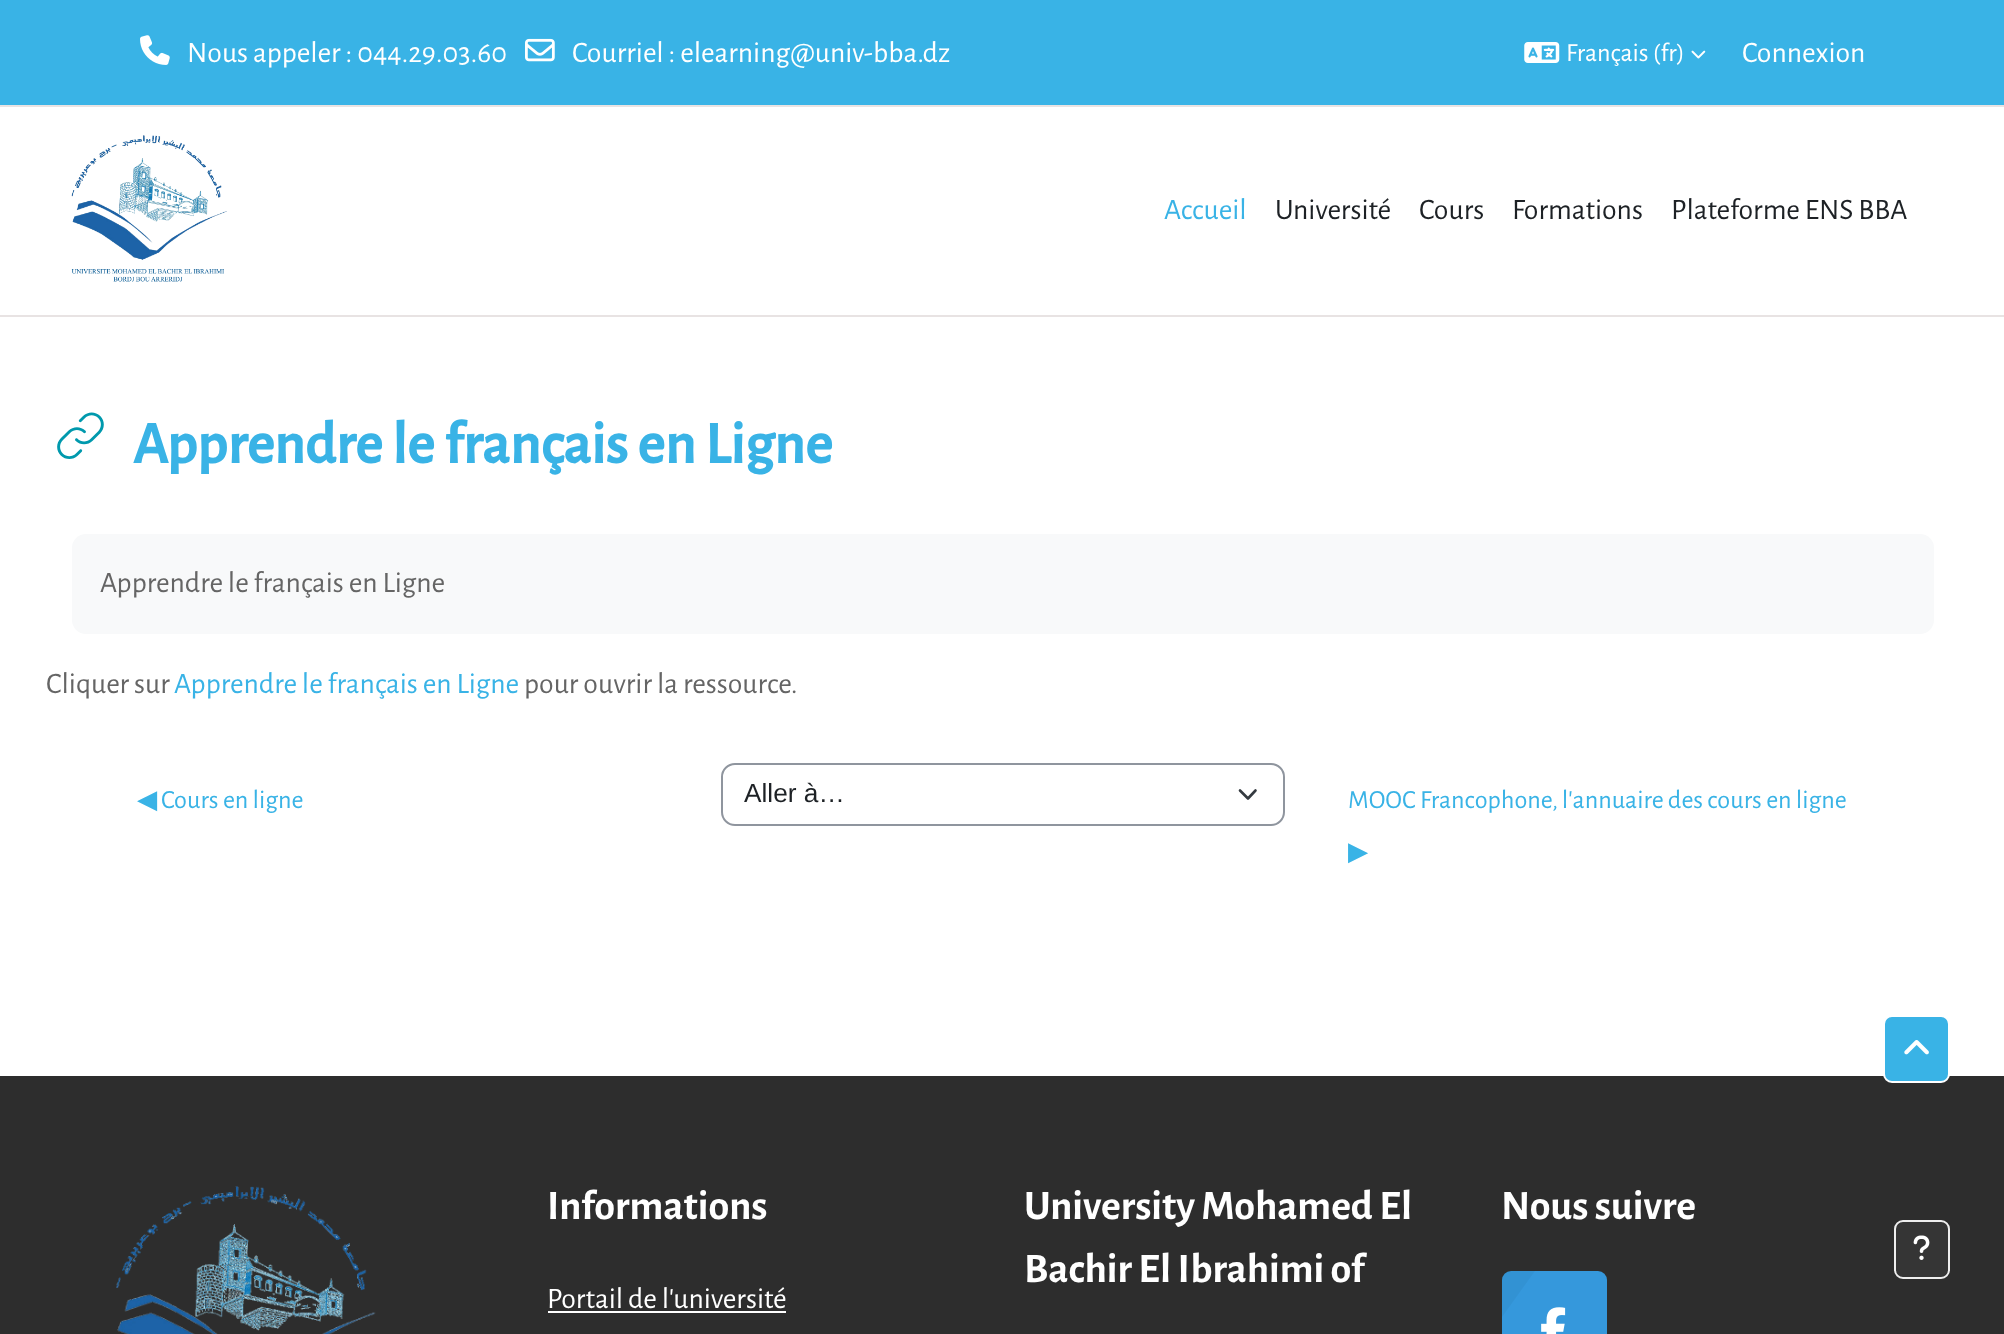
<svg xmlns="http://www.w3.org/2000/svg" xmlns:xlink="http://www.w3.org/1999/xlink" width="2004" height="1334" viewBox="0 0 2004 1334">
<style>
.cls-1{font:29.75px Alegreya Sans;fill:#ffffff}
.cls-2{font:26.25px Alegreya Sans;fill:#ffffff}
.cls-3{font:29.75px Alegreya Sans;fill:#39b3e6}
.cls-4{font:29.75px Alegreya Sans;fill:#1d2125}
.cls-5{font:bold 59.5px Alegreya Sans;fill:#39b3e6}
.cls-6{font:29.75px Alegreya Sans;fill:#656565}
.cls-7{font:26.25px DejaVu Sans;fill:#39b3e6}
.cls-8{font:26.25px Alegreya Sans;fill:#39b3e6}
.cls-9{font:26.25px Liberation Sans;fill:#1d2125}
.cls-10{font:bold 42px 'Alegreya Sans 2';fill:#ffffff}
</style>
<rect width="100%" height="100%" fill="#ffffff"/>
<rect fill="#39b3e6" x="0" y="0" width="2004" height="105"/>
<rect fill="#e8e3e3" x="0" y="105" width="2004" height="2"/>
<image xlink:href="image0.png" x="140" y="35" width="30" height="30"/>
<image xlink:href="image1.png" x="525" y="38" width="30" height="24"/>
<image xlink:href="image2.png" x="1524" y="42" width="36" height="21"/>
<image xlink:href="image3.png" x="1691" y="50" width="15" height="9"/>
<rect fill="#e8e3e3" x="0" y="315" width="2004" height="2"/>
<image xlink:href="image4.png" x="71" y="135" width="156" height="147"/>
<image xlink:href="image5.png" x="57" y="412" width="47" height="47"/>
<rect fill="#f8f9fa" x="72" y="534" width="1862" height="100" rx="14"/>
<path fill="none" stroke="#343a40" stroke-width="2.6" stroke-linecap="round" stroke-linejoin="round" d="M1240 790.5L1248 798.5L1255.5 790.5"/>
<rect fill="none" stroke="#8f959e" stroke-width="2" x="722" y="764" width="562" height="61" rx="13"/>
<rect fill="#2d2d2d" x="0" y="1076" width="2004" height="258"/>
<rect fill="#39b3e6" stroke="#ffffff" stroke-width="2" x="1884" y="1016" width="65" height="66" rx="8"/>
<image xlink:href="image6.png" x="1904" y="1040" width="25" height="15"/>
<image xlink:href="image7.png" x="116" y="1186" width="260" height="148"/>
<rect fill="#ffffff" x="548" y="1311" width="238" height="2"/>
<rect fill="#3598dc" x="1502" y="1271" width="105" height="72" rx="9"/>
<image xlink:href="image8.png" x="1541" y="1307" width="25" height="27"/>
<path fill="#000000" fill-opacity="0.04" d="M1511 1271H1535L1502 1317V1280C1502 1275 1506 1271 1511 1271Z"/>
<rect fill="#353535" stroke="#eeeeee" stroke-width="2" x="1895" y="1221" width="54" height="57" rx="8"/>
<image xlink:href="image9.png" x="1913" y="1235" width="17" height="25"/>
<text class="cls-1" x="187" y="62">Nous appeler : 044.29.03.60</text>
<text class="cls-1" x="572" y="62">Courriel : elearning@univ-bba.dz</text>
<text class="cls-2" x="1566" y="61">Français (fr)</text>
<text class="cls-1" x="1742" y="62">Connexion</text>
<text class="cls-3" x="1164" y="219">Accueil</text>
<text class="cls-4" x="1275" y="219">Université</text>
<text class="cls-4" x="1419" y="219">Cours</text>
<text class="cls-4" x="1512" y="219">Formations</text>
<text class="cls-4" x="1671" y="219">Plateforme ENS BBA</text>
<text class="cls-5" x="133" y="463">Apprendre le français en Ligne</text>
<text class="cls-6" x="100" y="592">Apprendre le français en Ligne</text>
<text class="cls-6" x="46" y="693">Cliquer sur</text>
<text class="cls-3" x="174" y="693">Apprendre le français en Ligne</text>
<text class="cls-6" x="524" y="693">pour ouvrir la ressource.</text>
<text class="cls-7" x="137" y="808">◀︎</text>
<text class="cls-8" x="161" y="808">Cours en ligne</text>
<text class="cls-9" x="744" y="802">Aller à…</text>
<text class="cls-8" x="1348" y="808">MOOC Francophone, l'annuaire des cours en ligne</text>
<text class="cls-7" x="1348" y="860">▶︎</text>
<text class="cls-10" x="547" y="1219">Informations</text>
<text class="cls-1" x="547" y="1308">Portail de l'université</text>
<text class="cls-10"><tspan x="1024" y="1219">University Mohamed El</tspan><tspan x="1024" y="1282">Bachir El Ibrahimi of</tspan></text>
<text class="cls-10" x="1501" y="1219">Nous suivre</text>
</svg>
